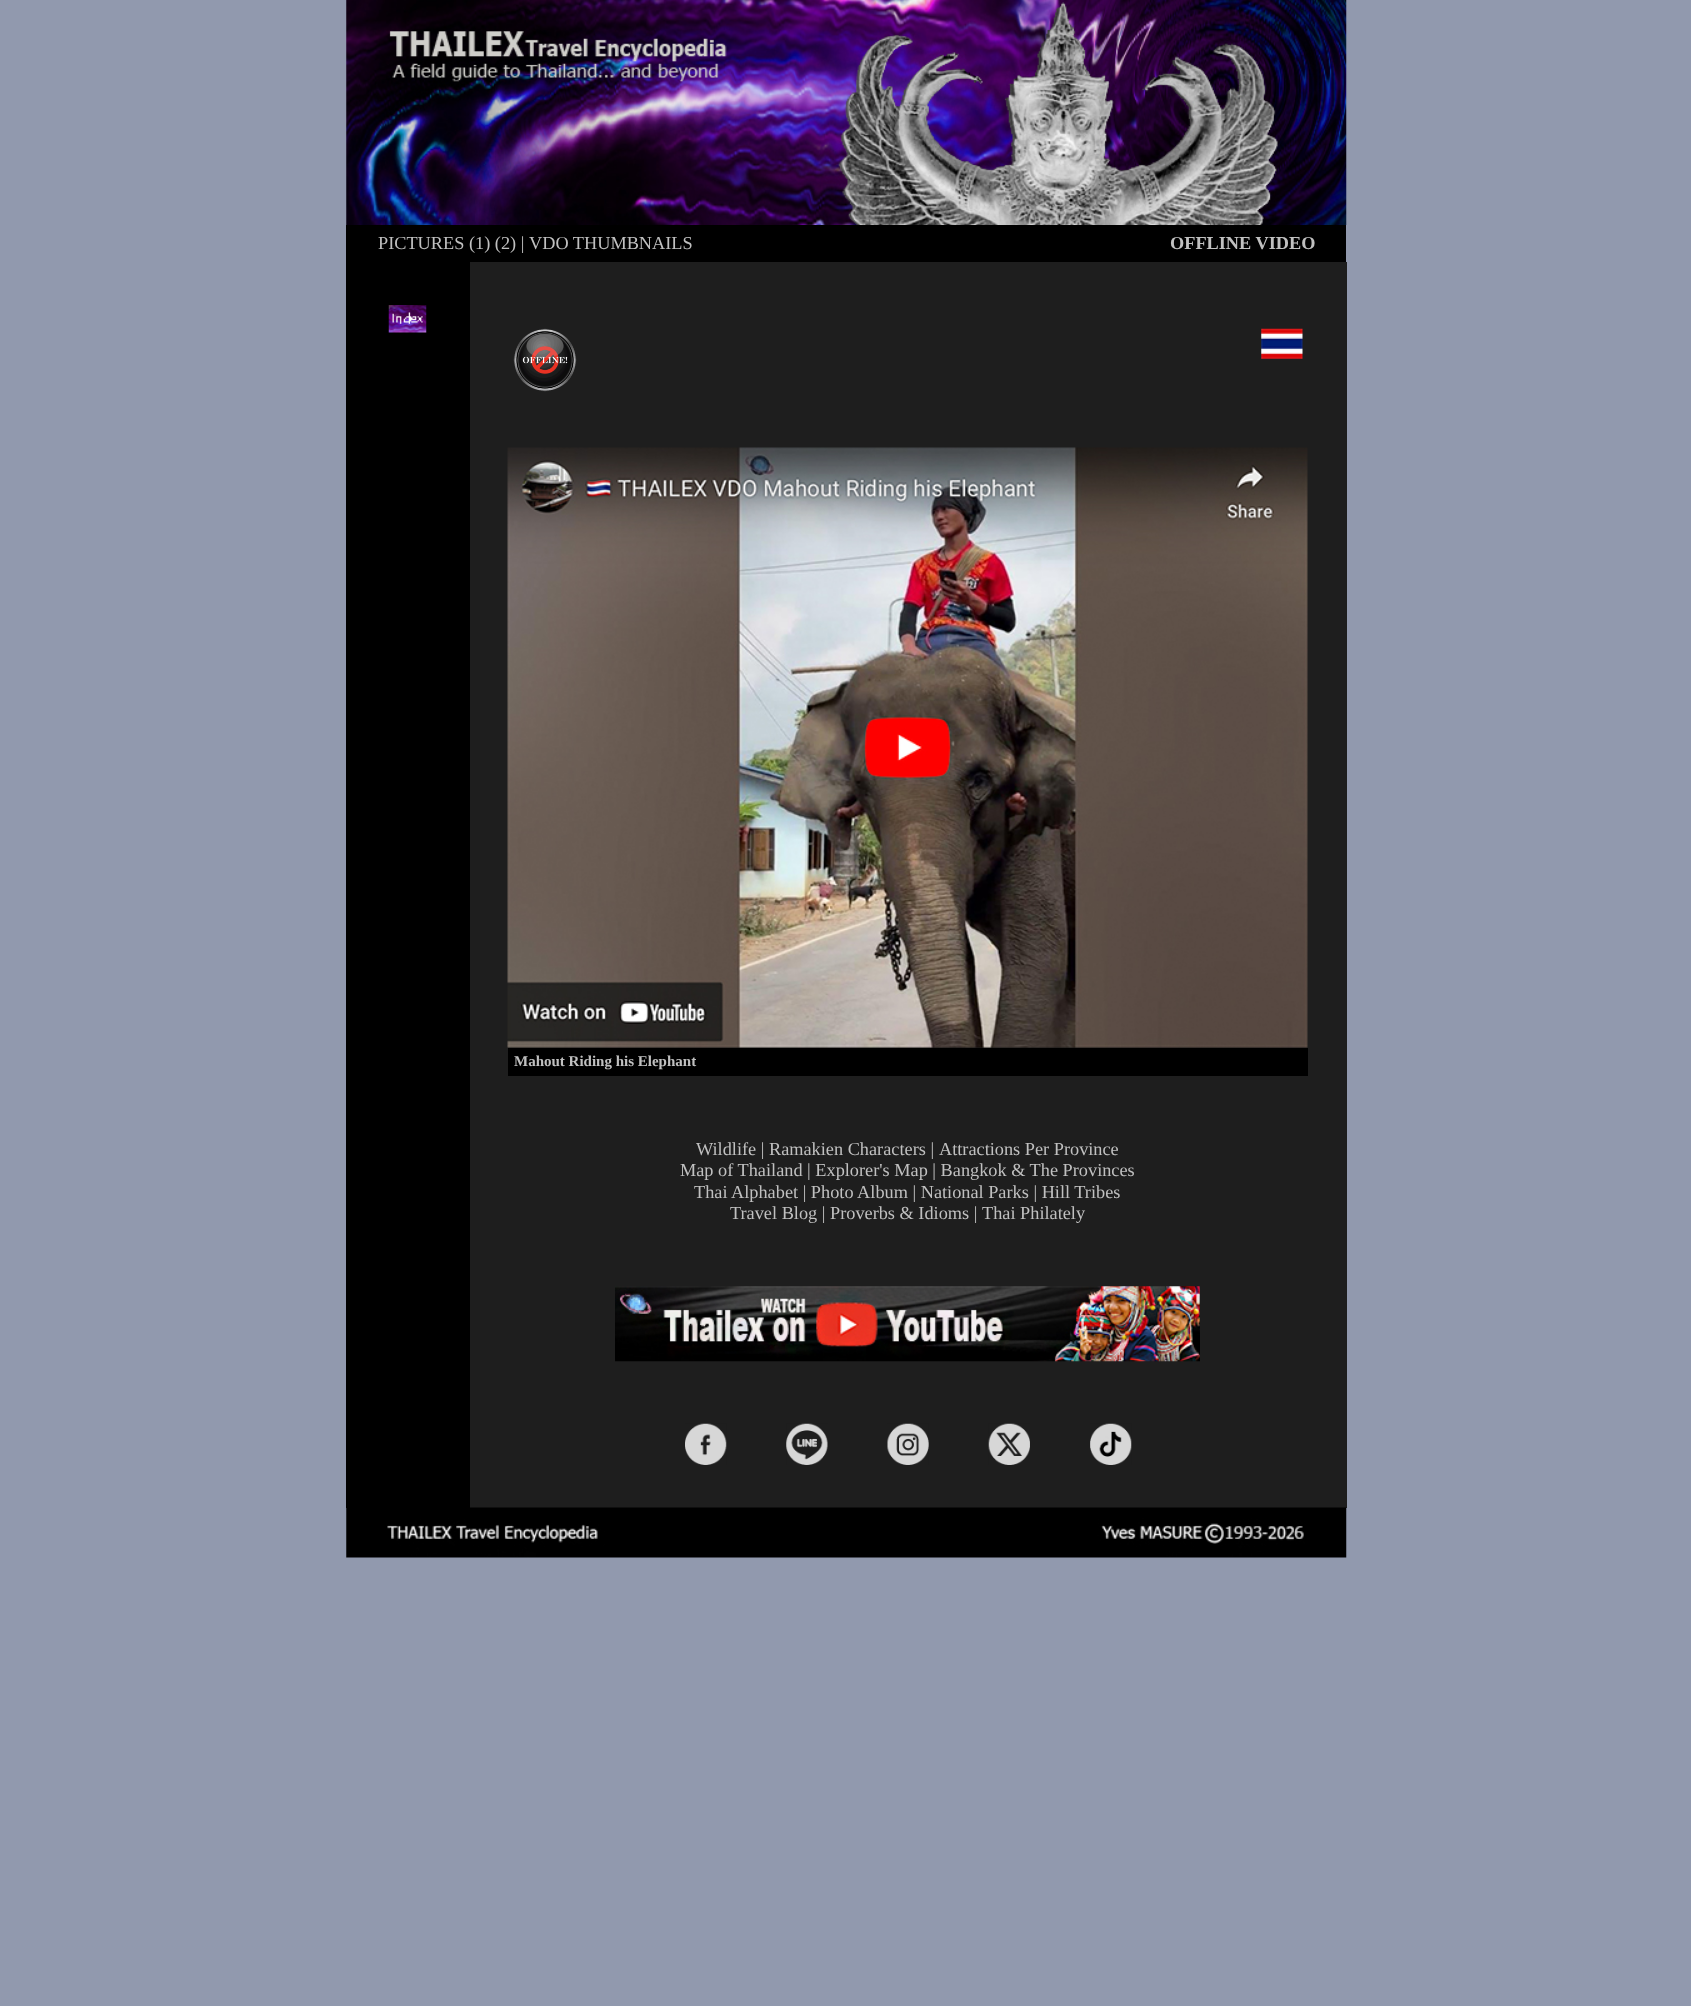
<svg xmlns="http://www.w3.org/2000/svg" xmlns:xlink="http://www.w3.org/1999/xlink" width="1691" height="2006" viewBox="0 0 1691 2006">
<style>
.cls-1{font:18.3px Liberation Serif;fill:#c0c0c0}
.cls-2{font:bold 18.3px Liberation Serif;fill:#c0c0c0}
.cls-3{font:bold 15px Liberation Serif;fill:#c0c0c0}
</style>
<rect width="100%" height="100%" fill="#9199ae"/>
<image xlink:href="image0.png" x="346" y="0" width="1001" height="225"/>
<rect fill="#000000" x="346" y="225" width="1000" height="38"/>
<rect fill="#000000" x="346" y="263" width="124" height="1245"/>
<image xlink:href="image1.png" x="388" y="305" width="39" height="28"/>
<rect fill="#1e1e1e" x="470" y="262" width="877" height="1246"/>
<image xlink:href="image2.png" x="513" y="328" width="64" height="64"/>
<image xlink:href="image3.png" x="1261" y="328" width="42" height="31"/>
<image xlink:href="image4.png" x="507" y="447" width="801" height="601"/>
<rect fill="#000000" x="508" y="1048" width="800" height="28"/>
<image xlink:href="image5.png" x="615" y="1286" width="585" height="76"/>
<image xlink:href="image6.png" x="685" y="1423" width="42" height="42"/>
<image xlink:href="image7.png" x="786" y="1423" width="42" height="42"/>
<image xlink:href="image8.png" x="887" y="1423" width="42" height="42"/>
<image xlink:href="image9.png" x="988" y="1423" width="42" height="42"/>
<image xlink:href="image10.png" x="1090" y="1423" width="42" height="42"/>
<image xlink:href="image11.png" x="346" y="1507" width="1001" height="51"/>
<text class="cls-1" x="378" y="249">PICTURES (1) (2) |</text>
<text class="cls-1" x="529" y="249">VDO THUMBNAILS</text>
<text class="cls-2" x="1170" y="249">OFFLINE VIDEO</text>
<text class="cls-3" x="514" y="1066">Mahout Riding his Elephant</text>
<text class="cls-1" x="696" y="1155">Wildlife | Ramakien Characters |</text>
<text class="cls-1" x="939" y="1155">Attractions Per Province</text>
<text class="cls-1" x="680" y="1176">Map of Thailand | Explorer's Map | Bangkok &amp; The Provinces</text>
<text class="cls-1" x="694" y="1198">Thai Alphabet | Photo Album | National Parks | Hill Tribes</text>
<text class="cls-1" x="730" y="1219">Travel Blog | Proverbs &amp; Idioms |</text>
<text class="cls-1" x="982" y="1219">Thai Philately</text>
</svg>
